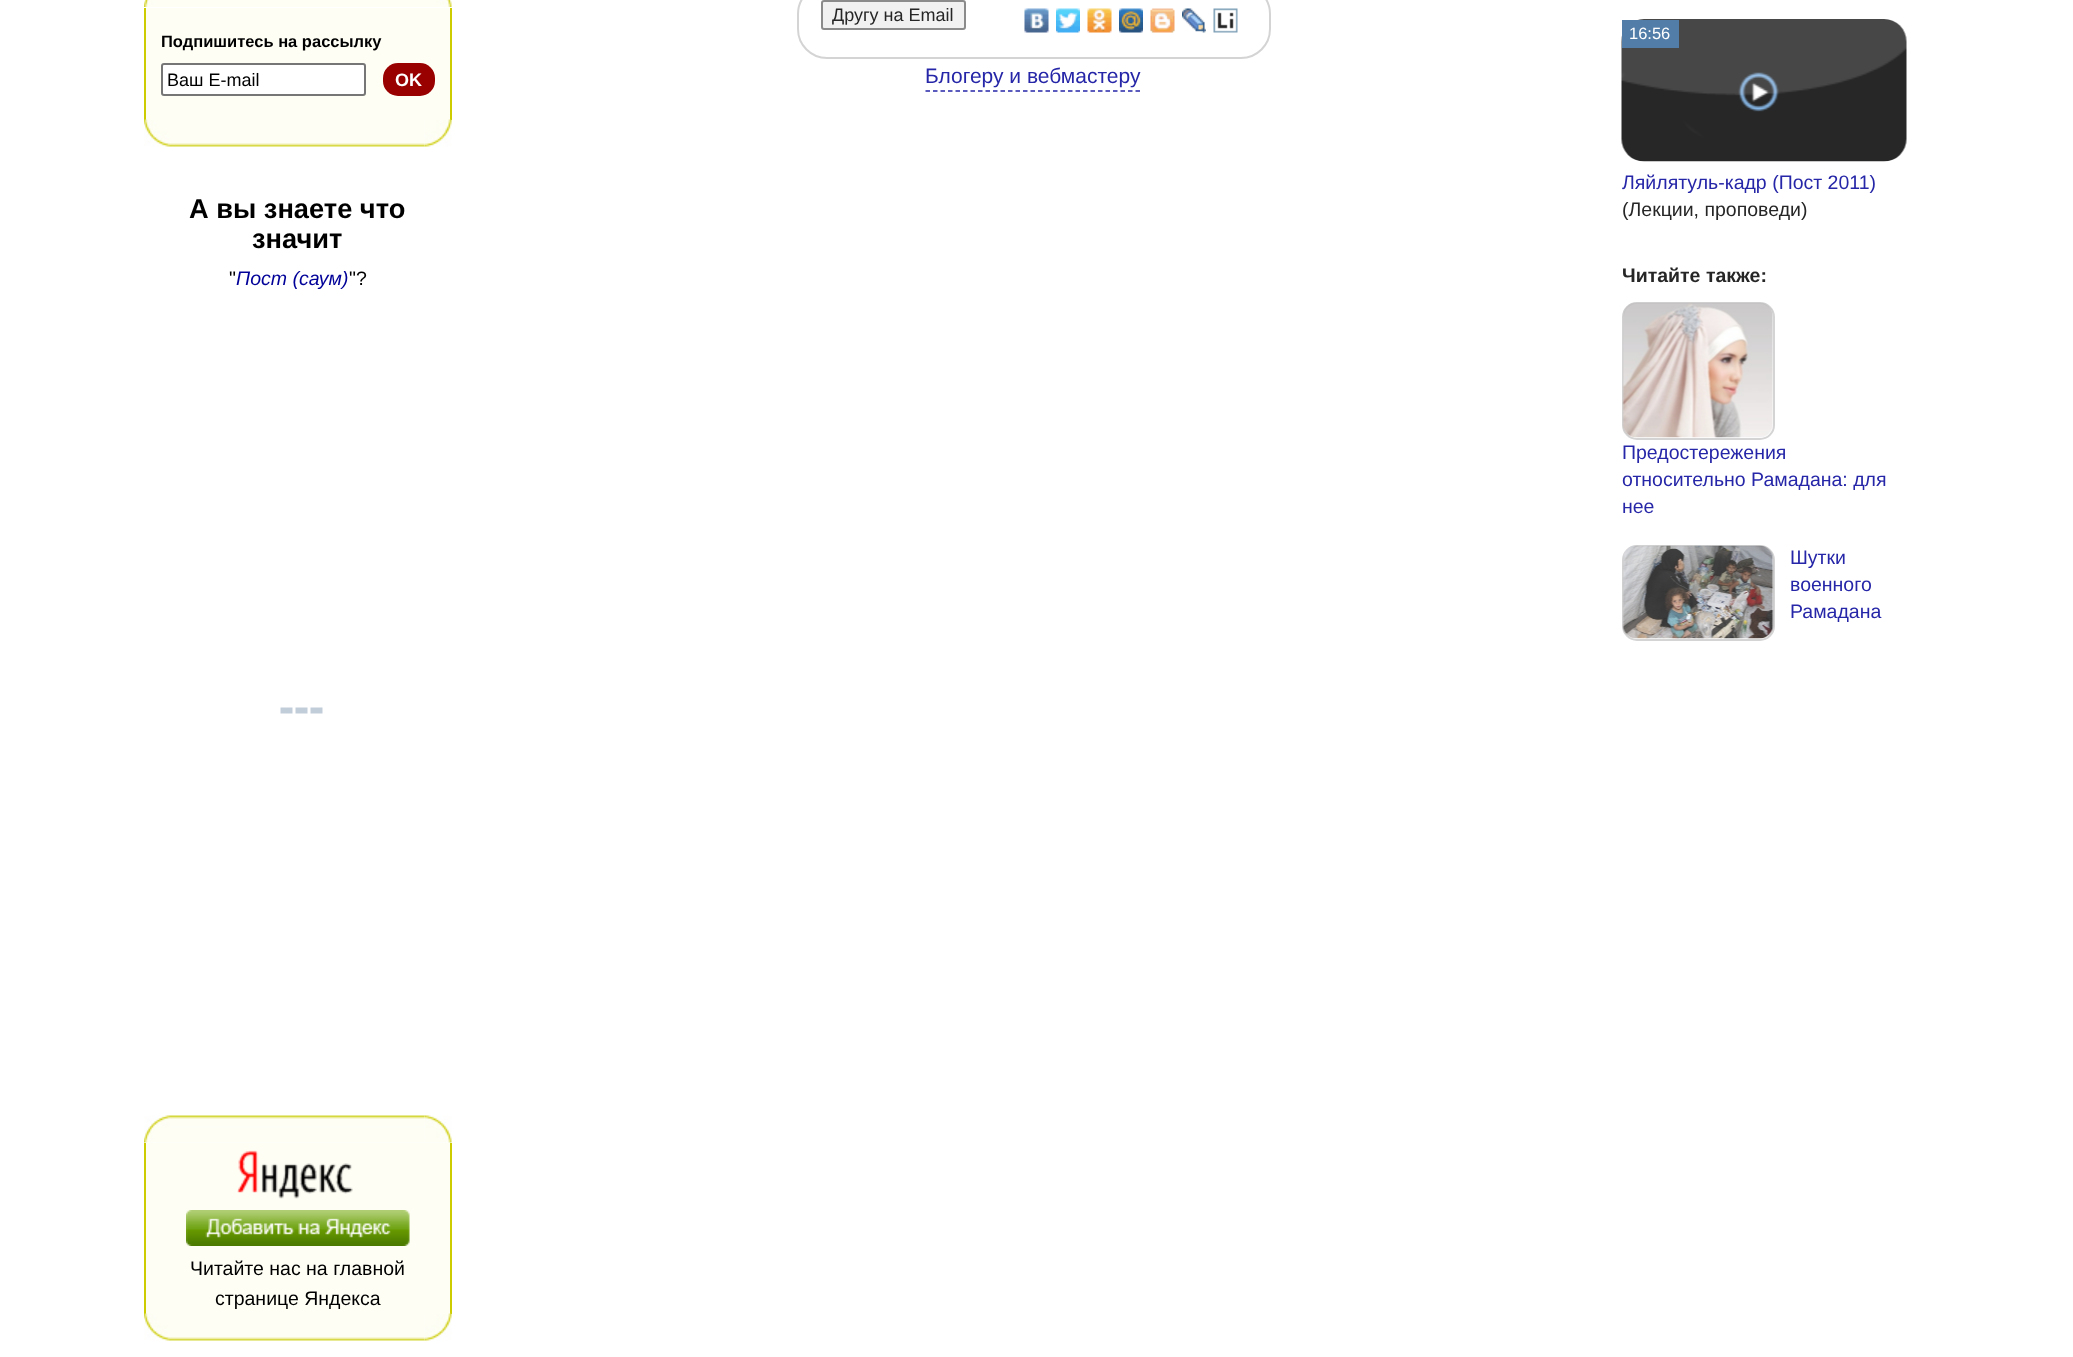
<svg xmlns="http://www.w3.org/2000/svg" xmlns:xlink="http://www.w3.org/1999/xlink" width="2073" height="1357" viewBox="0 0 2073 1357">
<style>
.cls-1{font:bold 16.5px Liberation Sans;fill:#000000}
.cls-2{font:18px Liberation Sans;fill:#000000}
.cls-3{font:bold 18px Liberation Sans;fill:#ffffff}
.cls-4{font:bold 27.25px Liberation Sans;fill:#000000}
.cls-5{font:19.5px Liberation Sans;fill:#000000}
.cls-6{font:italic 19.5px Liberation Sans;fill:#000099}
.cls-7{font:18px Liberation Sans;fill:#262626}
.cls-8{font:21px Liberation Sans;fill:#2626a8}
.cls-9{font:16.5px Liberation Sans;fill:#ffffff}
.cls-10{font:19.5px Liberation Sans;fill:#2626a8}
.cls-11{font:19.5px Liberation Sans;fill:#262626}
.cls-12{font:bold 19.5px Liberation Sans;fill:#262626}
</style>
<rect width="100%" height="100%" fill="#ffffff"/>
<image xlink:href="image0.png" x="144" y="0" width="27" height="7"/>
<rect fill="#fefef4" x="171" y="0" width="254" height="7"/>
<image xlink:href="image1.png" x="425" y="0" width="27" height="7"/>
<rect fill="#fffef5" x="146" y="8" width="304" height="112"/>
<rect fill="#cccc00" x="450" y="8" width="2" height="112"/>
<rect fill="#cccc00" x="144" y="8" width="2" height="112"/>
<rect fill="#ffffff" stroke="#767676" stroke-width="2" x="162" y="64" width="203" height="31" rx="2"/>
<rect fill="#990000" x="383" y="63" width="52" height="33" rx="15"/>
<image xlink:href="image2.png" x="144" y="119" width="27" height="28"/>
<image xlink:href="image3.png" x="171" y="120" width="254" height="27"/>
<image xlink:href="image4.png" x="424" y="119" width="28" height="28"/>
<image xlink:href="image5.png" x="280" y="707" width="43" height="7"/>
<image xlink:href="image6.png" x="144" y="1115" width="27" height="28"/>
<image xlink:href="image7.png" x="171" y="1115" width="254" height="28"/>
<image xlink:href="image8.png" x="424" y="1115" width="28" height="28"/>
<rect fill="#fffef5" x="146" y="1143" width="304" height="171"/>
<rect fill="#cccc00" x="450" y="1143" width="2" height="171"/>
<rect fill="#cccc00" x="144" y="1143" width="2" height="171"/>
<image xlink:href="image9.png" x="237" y="1150" width="116" height="49"/>
<image xlink:href="image10.png" x="186" y="1210" width="224" height="36"/>
<image xlink:href="image2.png" x="144" y="1313" width="27" height="28"/>
<image xlink:href="image3.png" x="171" y="1314" width="254" height="27"/>
<image xlink:href="image4.png" x="424" y="1313" width="28" height="28"/>
<rect fill="none" stroke="#d4d4d4" stroke-width="2" x="798" y="-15" width="472" height="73" rx="29"/>
<rect fill="#f1f1f1" stroke="#8b8b8b" stroke-width="2" x="822" y="1" width="143" height="28" rx="2"/>
<image xlink:href="image11.png" x="1024" y="8" width="25" height="25"/>
<image xlink:href="image12.png" x="1056" y="8" width="24" height="25"/>
<image xlink:href="image13.png" x="1087" y="8" width="25" height="25"/>
<image xlink:href="image14.png" x="1119" y="8" width="24" height="25"/>
<image xlink:href="image15.png" x="1150" y="8" width="25" height="25"/>
<image xlink:href="image16.png" x="1182" y="8" width="24" height="25"/>
<image xlink:href="image17.png" x="1213" y="8" width="25" height="25"/>
<path fill="none" stroke="#2626a8" stroke-width="1.5" stroke-dasharray="4.5 3" d="M925.5 91H1140"/>
<image xlink:href="image18.png" x="1621" y="19" width="286" height="143"/>
<rect fill="#527da8" x="1622" y="20" width="57" height="28"/>
<rect fill="none" stroke="#d4d4d4" stroke-width="2" x="1623" y="303" width="151" height="136" rx="14"/>
<image xlink:href="image19.png" x="1622" y="302" width="151" height="136"/>
<rect fill="none" stroke="#d4d4d4" stroke-width="2" x="1623" y="546" width="151" height="94" rx="14"/>
<image xlink:href="image20.png" x="1622" y="545" width="152" height="94"/>
<text class="cls-1" x="161" y="47">Подпишитесь на рассылку</text>
<text class="cls-2" x="167" y="86">Ваш E-mail</text>
<text class="cls-3" x="395" y="86">OK</text>
<text class="cls-4" x="189" y="218">А вы знаете что</text>
<text class="cls-4" x="252" y="248">значит</text>
<text class="cls-5" x="229" y="285">"</text>
<text class="cls-6" x="236" y="285">Пост (саум)</text>
<text class="cls-5" x="349" y="285">"?</text>
<text class="cls-5" x="190" y="1275">Читайте нас на главной</text>
<text class="cls-5" x="215" y="1305">странице Яндекса</text>
<text class="cls-7" x="832" y="21">Другу на Email</text>
<text class="cls-8" x="925" y="83">Блогеру и вебмастеру</text>
<text class="cls-9" x="1629" y="39">16:56</text>
<text class="cls-10" x="1622" y="189">Ляйлятуль-кадр (Пост 2011)</text>
<text class="cls-11" x="1622" y="216">(Лекции, проповеди)</text>
<text class="cls-12" x="1622" y="282">Читайте также:</text>
<text class="cls-10"><tspan x="1622" y="459">Предостережения</tspan><tspan x="1622" y="486">относительно Рамадана: для</tspan><tspan x="1622" y="513">нее</tspan></text>
<text class="cls-10"><tspan x="1790" y="564">Шутки</tspan><tspan x="1790" y="591">военного</tspan><tspan x="1790" y="618">Рамадана</tspan></text>
</svg>
